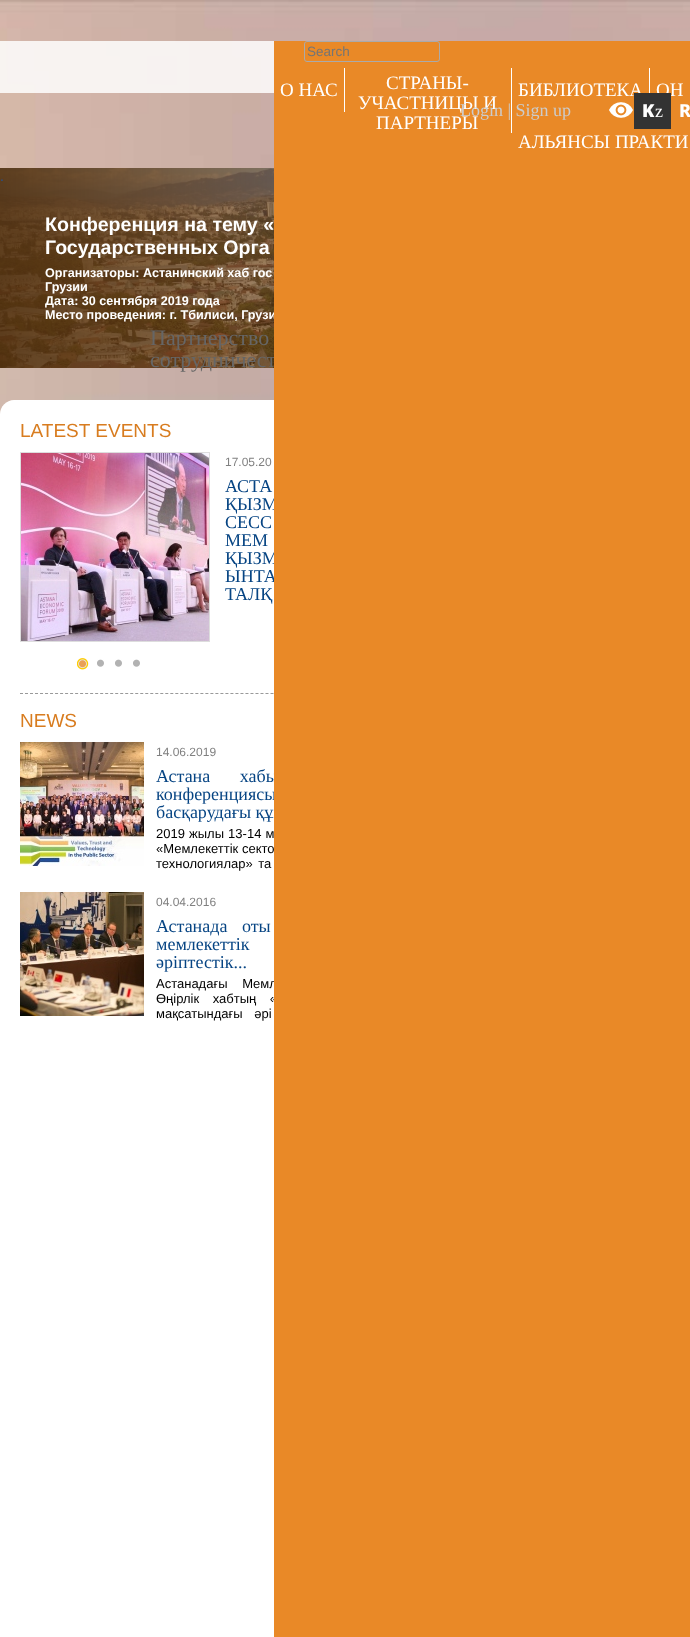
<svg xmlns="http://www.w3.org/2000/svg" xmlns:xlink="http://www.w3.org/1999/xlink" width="690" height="1637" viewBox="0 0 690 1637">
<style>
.cls-1{font:14px Liberation Sans;fill:#235298}
.cls-2{font:bold 19.6px Liberation Sans;fill:#ffffff}
.cls-3{font:bold 12.6px Liberation Sans;fill:#ffffff}
.cls-4{font:22px Liberation Serif;fill:#666666}
.cls-5{font:19px Liberation Sans;fill:#d87c1f}
.cls-6{font:12px Liberation Sans;fill:#808080}
.cls-7{font:18px Liberation Serif;fill:#064483}
.cls-8{font:13px Liberation Sans;fill:#000000}
.cls-9{font:800 18px Noto Sans;fill:#ffffff}
.cls-10{font:19px Liberation Serif;fill:#ffffff}
.cls-11{font:18px Liberation Serif;fill:#ffffff}
.cls-12{font:900 18px Noto Sans;fill:#ffffff}
.cls-13{font:18px Liberation Serif;fill:#cccccc}
.cls-14{font:13.5px Liberation Sans;fill:#757575}
</style>
<rect width="100%" height="100%" fill="#ffffff"/>
<image xlink:href="image0.png" x="0" y="0" width="690" height="414"/>
<rect fill="#ffffff" fill-opacity="0.84" x="0" y="41" width="274" height="52"/>
<image xlink:href="image2.png" x="0" y="168" width="274" height="200"/>
<path fill="#ffffff" d="M14 400H690C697.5 400 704 406.5 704 414V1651H0V414C0 406.5 6.5 400 14 400Z"/>
<path fill="none" stroke="#999999" stroke-dasharray="3 2.01" d="M20 693.5H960"/>
<rect fill="none" stroke="#dddddd" x="20.5" y="452.5" width="189" height="189"/>
<image xlink:href="image3.png" x="21" y="453" width="188" height="188"/>
<image xlink:href="image4.png" x="77" y="658" width="12" height="12"/>
<image xlink:href="image5.png" x="97" y="659" width="7" height="8"/>
<image xlink:href="image5.png" x="115" y="659" width="7" height="8"/>
<image xlink:href="image5.png" x="133" y="659" width="7" height="8"/>
<image xlink:href="image6.png" x="20" y="742" width="124" height="124"/>
<image xlink:href="image7.png" x="20" y="892" width="124" height="124"/>
<text class="cls-1" x="0" y="181">.</text>
<text class="cls-2"><tspan x="45" y="231">Конференция на тему «</tspan><tspan x="45" y="254">Государственных Орга</tspan></text>
<text class="cls-3"><tspan x="45" y="277">Организаторы: Астанинский хаб гос</tspan><tspan x="45" y="291">Грузии</tspan><tspan x="45" y="305">Дата: 30 сентября 2019 года</tspan><tspan x="45" y="319">Место проведения: г. Тбилиси, Грузи</tspan></text>
<text class="cls-4"><tspan x="150" y="345">Партнерство</tspan><tspan x="150" y="367">cотрудничест</tspan></text>
<text class="cls-5" x="20" y="437">LATEST EVENTS</text>
<text class="cls-6" x="225" y="466">17.05.20</text>
<text class="cls-7"><tspan x="225" y="492">АСТА</tspan><tspan x="225" y="510">ҚЫЗМ</tspan><tspan x="225" y="528">СЕСС</tspan><tspan x="225" y="546">МЕМ</tspan><tspan x="225" y="564">ҚЫЗМ</tspan><tspan x="225" y="582">ЫНТА</tspan><tspan x="225" y="600">ТАЛҚ</tspan></text>
<text class="cls-5" x="20" y="727">NEWS</text>
<text class="cls-6" x="156" y="756">14.06.2019</text>
<text class="cls-7"><tspan x="156" y="782" word-spacing="25">Астана хабы</tspan><tspan x="156" y="800" word-spacing="68">конференциясы</tspan><tspan x="156" y="818">басқарудағы құ</tspan></text>
<text class="cls-8"><tspan x="156" y="838" word-spacing="0.5">2019 жылы 13-14 м</tspan><tspan x="156" y="853">«Мемлекеттік секто</tspan><tspan x="156" y="868" word-spacing="2">технологиялар» та</tspan></text>
<text class="cls-6" x="156" y="906">04.04.2016</text>
<text class="cls-7"><tspan x="156" y="932" word-spacing="10">Астанада оты</tspan><tspan x="156" y="950" word-spacing="20">мемлекеттік</tspan><tspan x="156" y="968">әріптестік...</tspan></text>
<text class="cls-8"><tspan x="156" y="988" word-spacing="11">Астанадағы Мемл</tspan><tspan x="156" y="1003" word-spacing="10">Өңірлік хабтың «</tspan></text>
<rect fill="#e98927" x="274" y="41" width="416" height="1596"/>
<text class="cls-9" x="679" y="117">R</text>
<text class="cls-10" x="656" y="96">ОН</text>
<text class="cls-10" x="518" y="96">БИБЛИОТЕКА</text>
<rect fill="#333333" x="634" y="93" width="37" height="36"/>
<text class="cls-11" x="655" y="117">z</text>
<text class="cls-12" x="642" y="117">K</text>
<image xlink:href="image1.png" x="609" y="102" width="24" height="16"/>
<text class="cls-10" x="358" y="109">УЧАСТНИЦЫ И</text>
<rect fill="#ffffff" x="511" y="68" width="1" height="65"/>
<text class="cls-13" x="460" y="116">Login | Sign up</text>
<text class="cls-10" x="518" y="148">АЛЬЯНСЫ ПРАКТИ</text>
<rect fill="#ffffff" x="649" y="68" width="1" height="25"/>
<text class="cls-10" x="376" y="129">ПАРТНЕРЫ</text>
<text class="cls-10" x="386" y="89">СТРАНЫ-</text>
<text class="cls-10" x="280" y="96">О НАС</text>
<rect fill="#ffffff" x="344" y="68" width="1" height="44"/>
<rect fill="none" stroke="#aaaaaa" x="304.5" y="41.5" width="135" height="20" rx="2.5"/>
<text class="cls-14" x="307" y="56">Search</text>
<text class="cls-8" x="156" y="1018" word-spacing="8">мақсатындағы әрі</text>
</svg>
